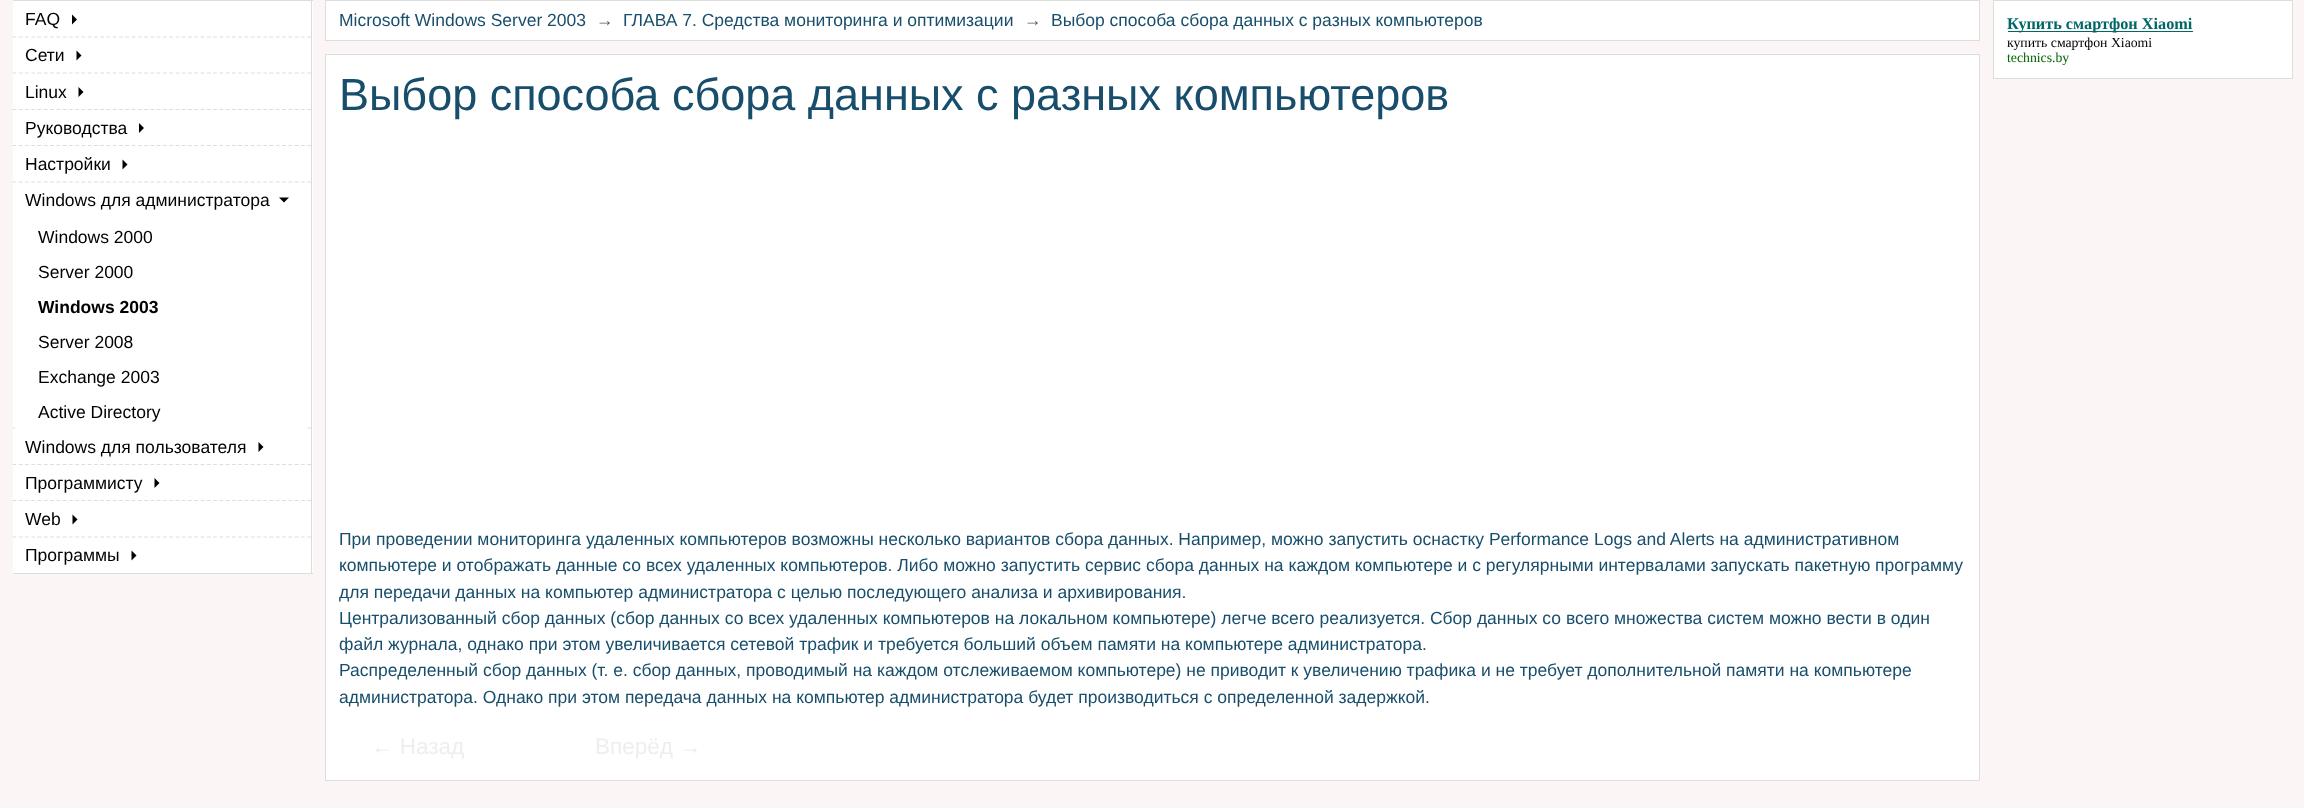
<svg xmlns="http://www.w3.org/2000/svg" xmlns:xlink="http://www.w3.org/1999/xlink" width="2304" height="808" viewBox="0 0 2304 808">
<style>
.cls-1{font:17.5px Liberation Sans;fill:#000000}
.cls-2{font:bold 17.5px Liberation Sans;fill:#000000}
.cls-3{font:17.5px Liberation Sans;fill:#184e6b}
.cls-4{font:17.5px Liberation Sans;fill:#595c5f}
.cls-5{font:bold 16.25px Liberation Serif;fill:#006666}
.cls-6{font:13.75px Liberation Serif;fill:#000000}
.cls-7{font:13.75px Liberation Serif;fill:#006600}
.cls-8{font:45px Liberation Sans;fill:#184e6b}
.cls-9{font:22.5px Liberation Sans;fill:#eeeeee}
</style>
<rect width="100%" height="100%" fill="#fbf5f5"/>
<rect fill="#ffffff" x="13" y="1" width="300" height="572"/>
<rect fill="#dddddd" x="13" y="0" width="300" height="1"/>
<rect fill="#dddddd" x="311" y="0" width="1" height="574"/>
<rect fill="#dddddd" x="13" y="573" width="300" height="1"/>
<path fill="none" stroke="#dddddd" stroke-width="1.2" stroke-dasharray="3.75 2.52" d="M12.5 37H311"/>
<path fill="#000000" d="M72 24.5V14.5L77 19.5Z"/>
<path fill="none" stroke="#dddddd" stroke-width="1.2" stroke-dasharray="3.75 2.52" d="M12.5 73H311"/>
<path fill="#000000" d="M76.5 60.5V50.5L81.5 55.5Z"/>
<path fill="none" stroke="#dddddd" stroke-width="1.2" stroke-dasharray="3.75 2.52" d="M12.5 109.5H311"/>
<path fill="#000000" d="M78.5 97V87L83.5 92Z"/>
<path fill="none" stroke="#dddddd" stroke-width="1.2" stroke-dasharray="3.75 2.52" d="M12.5 145.5H311"/>
<path fill="#000000" d="M139 133V123L144 128Z"/>
<path fill="none" stroke="#dddddd" stroke-width="1.2" stroke-dasharray="3.75 2.52" d="M12.5 182H311"/>
<path fill="#000000" d="M122.5 169.5V159.5L127.5 164.5Z"/>
<path fill="none" stroke="#dddddd" stroke-width="1.2" stroke-dasharray="3.75 2.52" d="M12.5 428H311"/>
<path fill="#000000" d="M279 197.5H289L284 202.5Z"/>
<rect fill="#ffffff" x="13" y="219" width="298" height="210" rx="8"/>
<path fill="#ffffff" d="M13 394H260V424C260 427 258 429 255 429H18C15 429 13 427 13 424Z"/>
<path fill="none" stroke="#dddddd" stroke-width="1.2" stroke-dasharray="3.75 2.52" d="M12.5 464.5H311"/>
<path fill="#000000" d="M258.5 452V442L263.5 447Z"/>
<path fill="none" stroke="#dddddd" stroke-width="1.2" stroke-dasharray="3.75 2.52" d="M12.5 500.5H311"/>
<path fill="#000000" d="M154.5 488V478L159.5 483Z"/>
<path fill="none" stroke="#dddddd" stroke-width="1.2" stroke-dasharray="3.75 2.52" d="M12.5 537H311"/>
<path fill="#000000" d="M72.5 524.5V514.5L77.5 519.5Z"/>
<path fill="#000000" d="M131.5 560.5V550.5L136.5 555.5Z"/>
<rect fill="#ffffff" stroke="#dddddd" x="325.5" y="0.5" width="1654" height="40"/>
<rect fill="#ffffff" stroke="#dddddd" x="1993.5" y="0.5" width="299" height="78"/>
<rect fill="#006666" x="2008" y="31" width="185" height="1"/>
<rect fill="#ffffff" stroke="#dddddd" x="325.5" y="54.5" width="1654" height="726"/>
<text class="cls-1" x="25" y="25">FAQ</text>
<text class="cls-1" x="25" y="61">Сети</text>
<text class="cls-1" x="25" y="98">Linux</text>
<text class="cls-1" x="25" y="134">Руководства</text>
<text class="cls-1" x="25" y="170">Настройки</text>
<text class="cls-1" x="25" y="206">Windows для администратора</text>
<text class="cls-1" x="38" y="243">Windows 2000</text>
<text class="cls-1" x="38" y="278">Server 2000</text>
<text class="cls-2" x="38" y="313">Windows 2003</text>
<text class="cls-1" x="38" y="348">Server 2008</text>
<text class="cls-1" x="38" y="383">Exchange 2003</text>
<text class="cls-1" x="38" y="418">Active Directory</text>
<text class="cls-1" x="25" y="453">Windows для пользователя</text>
<text class="cls-1" x="25" y="489">Программисту</text>
<text class="cls-1" x="25" y="525">Web</text>
<text class="cls-1" x="25" y="561">Программы</text>
<text class="cls-3" x="339" y="26">Microsoft Windows Server 2003</text>
<text class="cls-4" x="596" y="26">→</text>
<text class="cls-3" x="623" y="26">ГЛАВА 7. Средства мониторинга и оптимизации</text>
<text class="cls-4" x="1024" y="26">→</text>
<text class="cls-3" x="1051" y="26">Выбор способа сбора данных с разных компьютеров</text>
<text class="cls-5" x="2007" y="29">Купить смартфон Xiaomi</text>
<text class="cls-6" x="2007" y="47">купить смартфон Xiaomi</text>
<text class="cls-7" x="2007" y="62">technics.by</text>
<text class="cls-8" x="339" y="110">Выбор способа сбора данных с разных компьютеров</text>
<text class="cls-3"><tspan x="339" y="545">При проведении мониторинга удаленных компьютеров возможны несколько вариантов сбора данных. Например, можно запустить оснастку Performance Logs and Alerts на административном</tspan><tspan x="339" y="571">компьютере и отображать данные со всех удаленных компьютеров. Либо можно запустить сервис сбора данных на каждом компьютере и с регулярными интервалами запускать пакетную программу</tspan><tspan x="339" y="598">для передачи данных на компьютер администратора с целью последующего анализа и архивирования.</tspan><tspan x="339" y="624">Централизованный сбор данных (сбор данных со всех удаленных компьютеров на локальном компьютере) легче всего реализуется. Сбор данных со всего множества систем можно вести в один</tspan><tspan x="339" y="650">файл журнала, однако при этом увеличивается сетевой трафик и требуется больший объем памяти на компьютере администратора.</tspan><tspan x="339" y="676">Распределенный сбор данных (т. е. сбор данных, проводимый на каждом отслеживаемом компьютере) не приводит к увеличению трафика и не требует дополнительной памяти на компьютере</tspan><tspan x="339" y="703">администратора. Однако при этом передача данных на компьютер администратора будет производиться с определенной задержкой.</tspan></text>
<text class="cls-9" x="371" y="754">← Назад</text>
<text class="cls-9" x="595" y="754">Вперёд →</text>
</svg>
